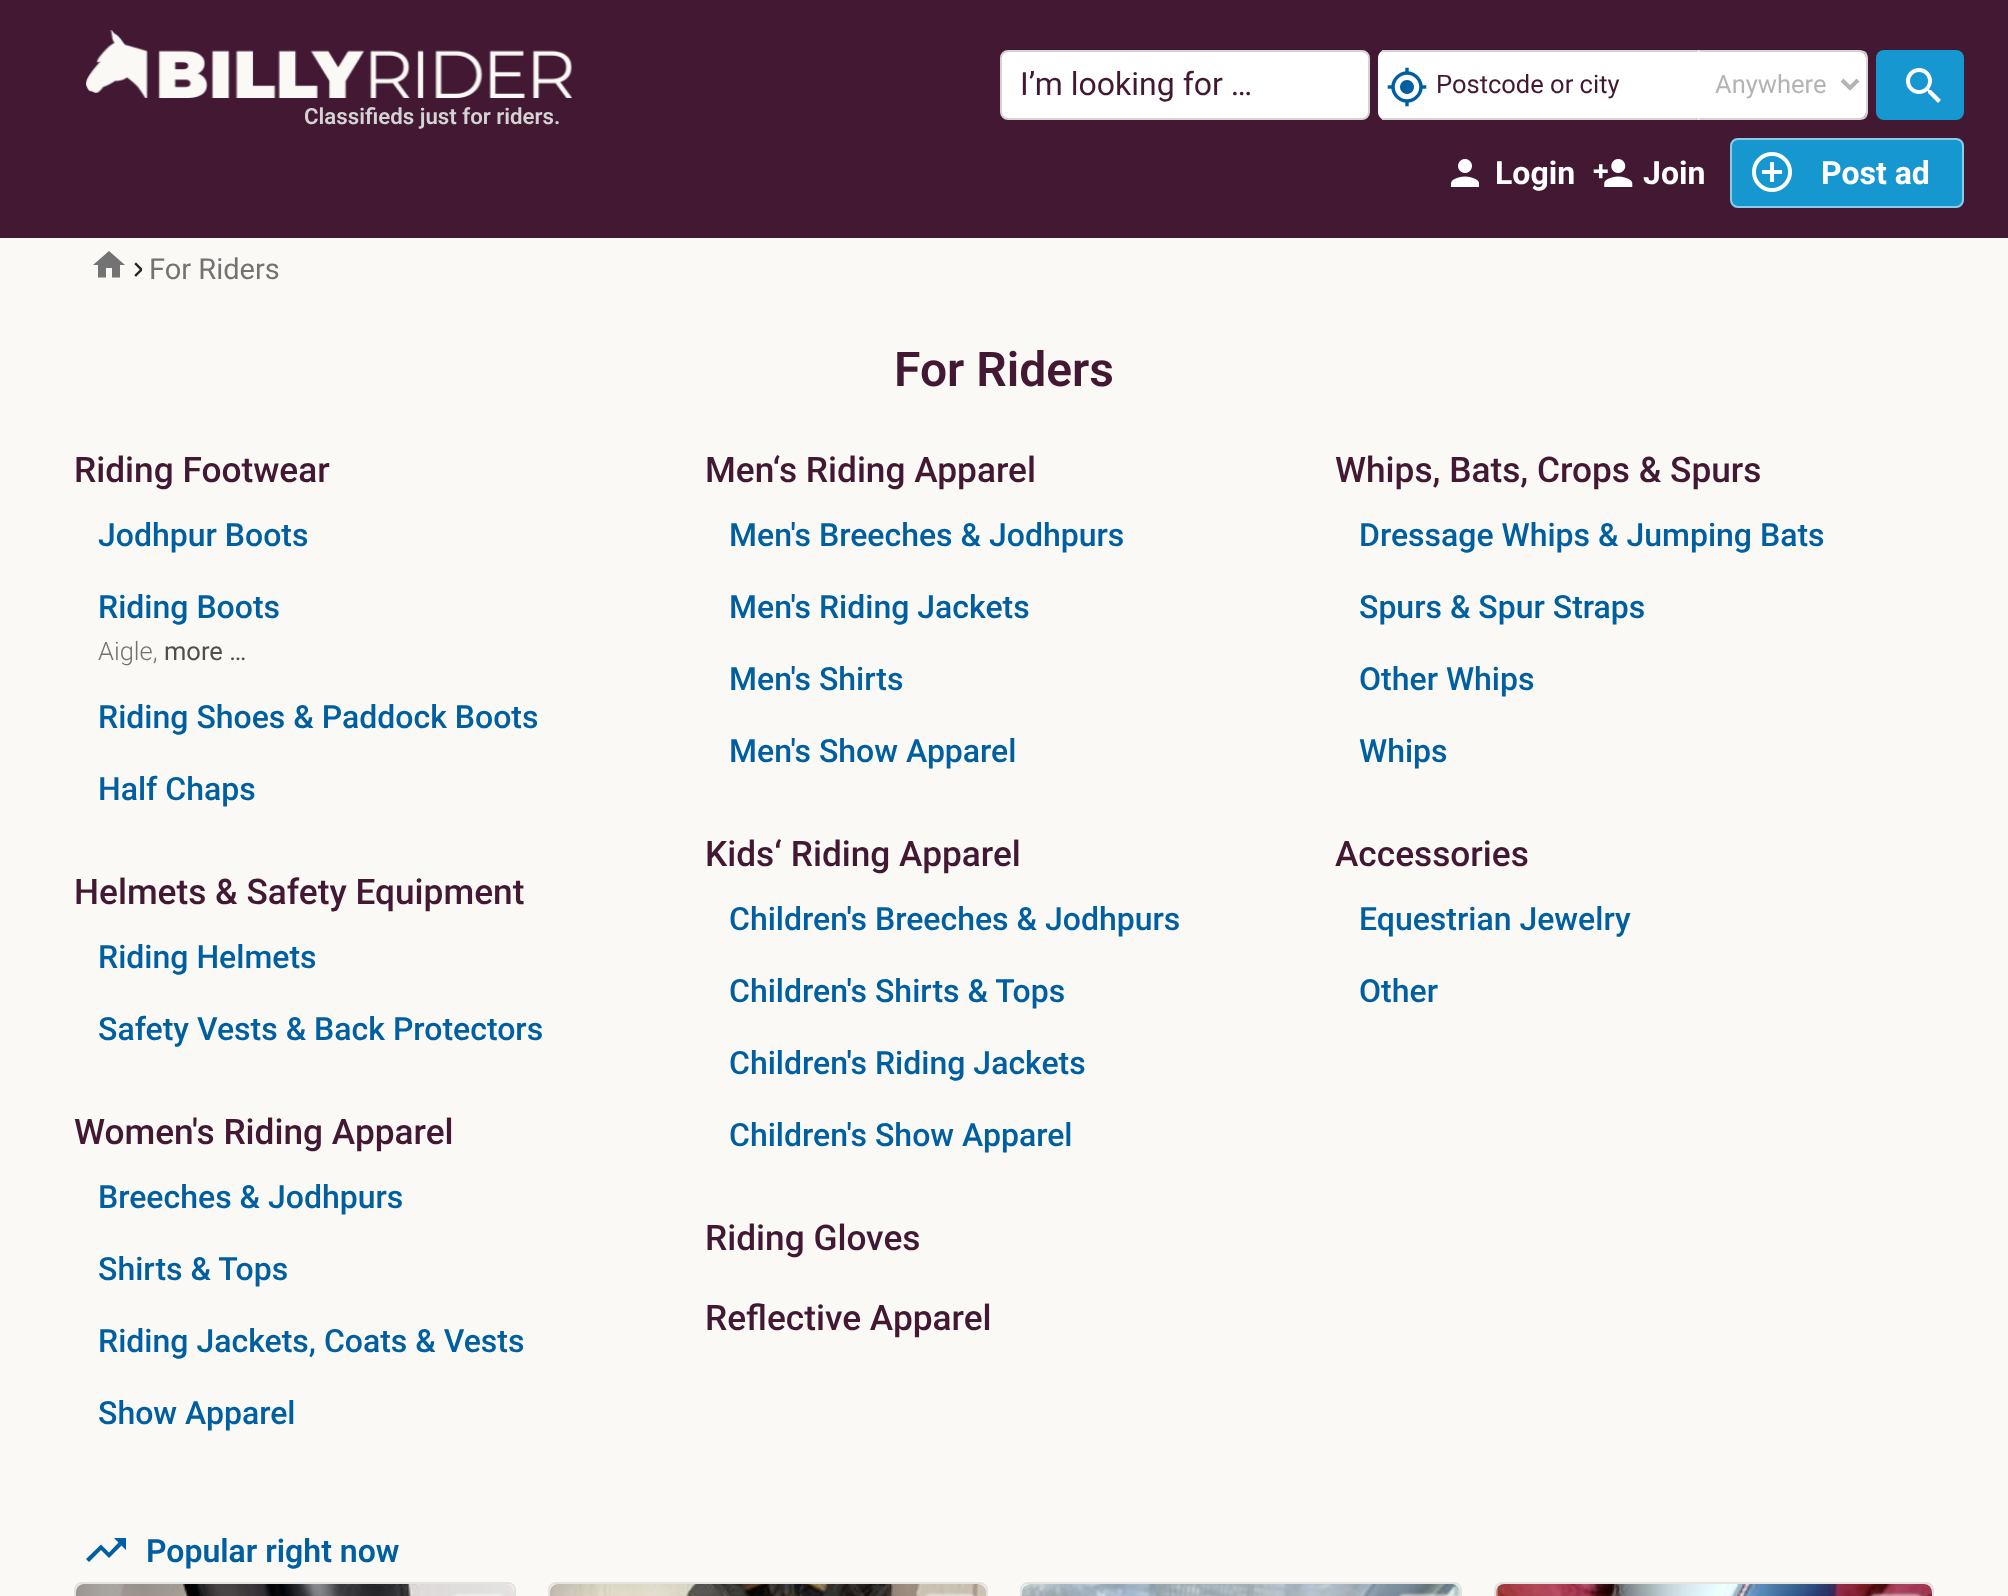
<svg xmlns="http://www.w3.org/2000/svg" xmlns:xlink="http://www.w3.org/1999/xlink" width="2008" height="1596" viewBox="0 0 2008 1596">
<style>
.cls-1{font:32px Roboto;fill:#421832}
.cls-2{font:25.5px Roboto;fill:#421832}
.cls-3{font:25.5px Roboto;fill:#b4b4b4}
.cls-4{font:600 22.25px Roboto;fill:#d3d3d3}
.cls-5{font:bold 32px Roboto;fill:#ffffff}
.cls-6{font:29px Roboto;fill:#737373}
.cls-7{font:600 48px Roboto;fill:#421832}
.cls-8{font:500 35.25px Roboto;fill:#421832}
.cls-9{font:500 32px Roboto;fill:#005fa0}
.cls-10{font:300 25.5px Roboto;fill:#737373}
.cls-11{font:25.5px Roboto;fill:#4f4f4f}
.cls-12{font:600 32px Roboto;fill:#005fa0}
</style>
<rect width="100%" height="100%" fill="#faf9f5"/>
<rect fill="#421832" x="0" y="0" width="2008" height="238"/>
<rect fill="#ffffff" stroke="#d3d3d3" stroke-width="2" x="1001" y="51" width="368" height="68" rx="7"/>
<rect fill="#ffffff" stroke="#d3d3d3" stroke-width="2" x="1431" y="51" width="268" height="68"/>
<path fill="#ffffff" d="M1386 50H1432V120H1386C1381.5 120 1378 116.5 1378 112V58C1378 53.5 1381.5 50 1386 50Z"/>
<rect fill="#d3d3d3" x="1382" y="50" width="50" height="2"/>
<rect fill="#d3d3d3" x="1382" y="118" width="50" height="2"/>
<image xlink:href="image0.png" x="1387" y="67" width="40" height="40"/>
<path fill="#ffffff" d="M1700 52H1860C1863.5 52 1866 54.5 1866 58V112C1866 115.5 1863.5 118 1860 118H1700Z"/>
<path fill="#d3d3d3" d="M1698 50L1700 52H1861L1864 54L1866 52C1864 51 1862 50 1860 50Z"/>
<path fill="#d3d3d3" d="M1868 112V58C1868 56 1867 54 1866 52L1864 54C1865 55 1866 56 1866 58V112C1866 114 1865 115 1864 116L1866 118C1867 116 1868 114 1868 112Z"/>
<path fill="#d3d3d3" d="M1860 120C1862 120 1864 119 1866 118L1864 116L1861 118H1700L1698 120Z"/>
<path fill="#ffffff" d="M1698 50V120L1700 118V52Z"/>
<path fill="none" stroke="#b4b4b4" stroke-width="4" d="M1842 80L1850 88L1858 80"/>
<rect fill="#1797cf" x="1876" y="50" width="88" height="70" rx="8"/>
<image xlink:href="image1.png" x="1906" y="68" width="35" height="35"/>
<image xlink:href="image2.png" x="86" y="30" width="486" height="68"/>
<image xlink:href="image3.png" x="1450" y="159" width="30" height="28"/>
<image xlink:href="image4.png" x="1593" y="159" width="40" height="28"/>
<rect fill="#1797cf" x="1730" y="138" width="234" height="70" rx="8"/>
<rect fill="none" stroke="#ffffff" stroke-opacity="0.5" stroke-width="2" x="1731" y="139" width="232" height="68" rx="7"/>
<image xlink:href="image5.png" x="1752" y="152" width="40" height="40"/>
<path fill="#737373" d="M106 277.5H98V265H93L109 251L125 265H120V277.5H112V268H106Z"/>
<image xlink:href="image6.png" x="134" y="262" width="8" height="15"/>
<path fill="#005fa0" d="M114 1538H126V1550L121.5 1545.5L109 1558L101 1550L89 1562L86 1559L101 1544.5L109 1552.5L118.5 1542.5Z"/>
<rect fill="#ffffff" stroke="#e2e2e2" stroke-width="2" x="75" y="1583" width="440" height="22" rx="7"/>
<image xlink:href="image7.png" x="76" y="1584" width="438" height="12"/>
<rect fill="#ffffff" fill-opacity="0.5" filter="blur(1px)" x="452" y="1594" width="52" height="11" rx="6"/>
<rect fill="#ffffff" stroke="#e2e2e2" stroke-width="2" x="549" y="1583" width="438" height="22" rx="7"/>
<image xlink:href="image8.png" x="550" y="1584" width="436" height="12"/>
<rect fill="#ffffff" fill-opacity="0.5" filter="blur(1px)" x="924" y="1594" width="52" height="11" rx="6"/>
<rect fill="#ffffff" stroke="#e2e2e2" stroke-width="2" x="1021" y="1583" width="440" height="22" rx="7"/>
<image xlink:href="image9.png" x="1022" y="1584" width="438" height="12"/>
<rect fill="#ffffff" fill-opacity="0.5" filter="blur(1px)" x="1398" y="1594" width="52" height="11" rx="6"/>
<rect fill="#ffffff" stroke="#e2e2e2" stroke-width="2" x="1495" y="1583" width="438" height="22" rx="7"/>
<image xlink:href="image10.png" x="1496" y="1584" width="436" height="12"/>
<rect fill="#ffffff" fill-opacity="0.5" filter="blur(1px)" x="1870" y="1594" width="52" height="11" rx="6"/>
<text class="cls-1" x="1020" y="95">I’m looking for …</text>
<text class="cls-2" x="1436" y="93">Postcode or city</text>
<text class="cls-3" x="1715" y="93">Anywhere</text>
<text class="cls-4" x="304" y="124">Classifieds just for riders.</text>
<text class="cls-5" x="1495" y="184">Login</text>
<text class="cls-5" x="1643" y="184">Join</text>
<text class="cls-5" x="1821" y="184">Post ad</text>
<text class="cls-6" x="149" y="279">For Riders</text>
<text class="cls-7" x="894" y="386">For Riders</text>
<text class="cls-8" x="74" y="482">Riding Footwear</text>
<text class="cls-9" x="98" y="546">Jodhpur Boots</text>
<text class="cls-9" x="98" y="618">Riding Boots</text>
<text class="cls-10" x="98" y="660">Aigle,</text>
<text class="cls-11" x="164" y="660">more …</text>
<text class="cls-9" x="98" y="728">Riding Shoes &amp; Paddock Boots</text>
<text class="cls-9" x="98" y="800">Half Chaps</text>
<text class="cls-8" x="705" y="482">Men‘s Riding Apparel</text>
<text class="cls-9" x="729" y="546">Men's Breeches &amp; Jodhpurs</text>
<text class="cls-9" x="729" y="618">Men's Riding Jackets</text>
<text class="cls-9" x="729" y="690">Men's Shirts</text>
<text class="cls-9" x="729" y="762">Men's Show Apparel</text>
<text class="cls-8" x="1335" y="482">Whips, Bats, Crops &amp; Spurs</text>
<text class="cls-9" x="1359" y="546">Dressage Whips &amp; Jumping Bats</text>
<text class="cls-9" x="1359" y="618">Spurs &amp; Spur Straps</text>
<text class="cls-9" x="1359" y="690">Other Whips</text>
<text class="cls-9" x="1359" y="762">Whips</text>
<text class="cls-8" x="74" y="904">Helmets &amp; Safety Equipment</text>
<text class="cls-9" x="98" y="968">Riding Helmets</text>
<text class="cls-9" x="98" y="1040">Safety Vests &amp; Back Protectors</text>
<text class="cls-8" x="705" y="866">Kids‘ Riding Apparel</text>
<text class="cls-9" x="729" y="930">Children's Breeches &amp; Jodhpurs</text>
<text class="cls-9" x="729" y="1002">Children's Shirts &amp; Tops</text>
<text class="cls-9" x="729" y="1074">Children's Riding Jackets</text>
<text class="cls-9" x="729" y="1146">Children's Show Apparel</text>
<text class="cls-8" x="1335" y="866">Accessories</text>
<text class="cls-9" x="1359" y="930">Equestrian Jewelry</text>
<text class="cls-9" x="1359" y="1002">Other</text>
<text class="cls-8" x="74" y="1144">Women's Riding Apparel</text>
<text class="cls-9" x="98" y="1208">Breeches &amp; Jodhpurs</text>
<text class="cls-9" x="98" y="1280">Shirts &amp; Tops</text>
<text class="cls-9" x="98" y="1352">Riding Jackets, Coats &amp; Vests</text>
<text class="cls-9" x="98" y="1424">Show Apparel</text>
<text class="cls-8" x="705" y="1250">Riding Gloves</text>
<text class="cls-8" x="705" y="1330">Reflective Apparel</text>
<text class="cls-12" x="146" y="1562">Popular right now</text>
</svg>
